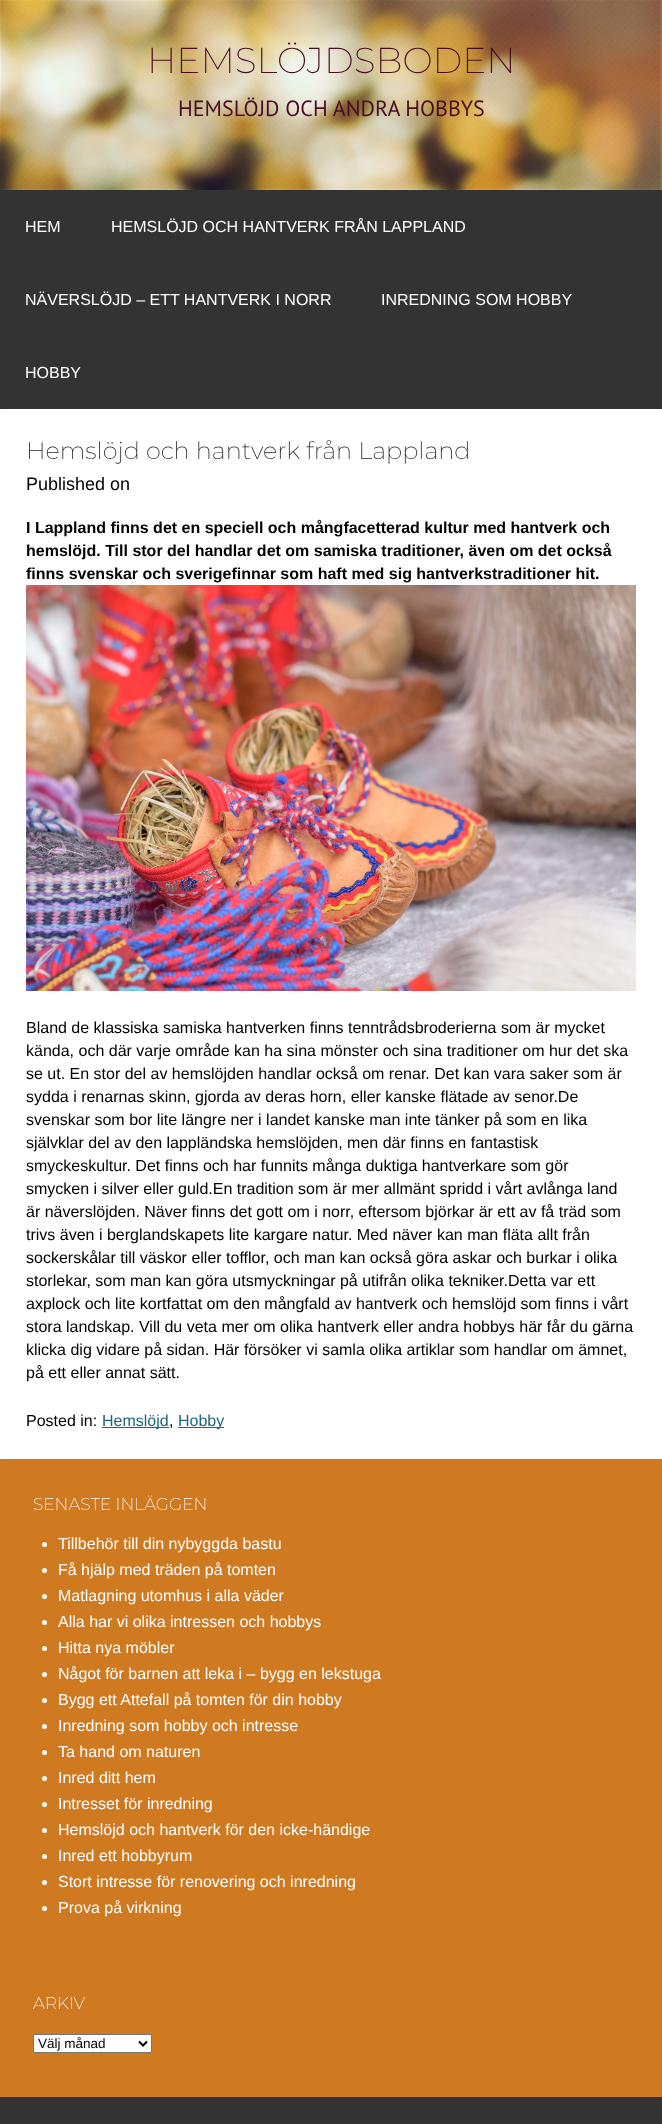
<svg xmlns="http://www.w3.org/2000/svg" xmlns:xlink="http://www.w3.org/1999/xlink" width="662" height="2124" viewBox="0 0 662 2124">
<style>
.cls-1{font:200 36px Montserrat;fill:#490d22}
.cls-2{font:22px PT Sans;fill:#490d22}
.cls-3{font:16px Liberation Sans;fill:#ffffff}
.cls-4{font:200 24px Montserrat;fill:#232323}
.cls-5{font:18px Liberation Sans;fill:#000000}
.cls-6{font:bold 16px Liberation Sans;fill:#000000}
.cls-7{font:16px Liberation Sans;fill:#000000}
.cls-8{font:16px Liberation Sans;fill:#196781}
.cls-9{font:200 17px Montserrat;fill:#ffffff}
.cls-10{font:13.5px Liberation Sans;fill:#000000}
</style>
<rect width="100%" height="100%" fill="#f2f2f2"/>
<image xlink:href="image0.png" x="0" y="0" width="662" height="190"/>
<rect fill="#333333" x="0" y="190" width="662" height="219"/>
<rect fill="#ffffff" x="0" y="409" width="662" height="1050" rx="3"/>
<image xlink:href="image1.png" x="26" y="585" width="610" height="406"/>
<rect fill="#196781" x="102" y="1427" width="67" height="1"/>
<rect fill="#196781" x="178" y="1427" width="46" height="1"/>
<rect fill="#cf7a21" x="0" y="1459" width="662" height="638"/>
<circle fill="#ffffff" cx="44.5" cy="1544.5" r="2.5"/>
<circle fill="#ffffff" cx="44.5" cy="1570.5" r="2.5"/>
<circle fill="#ffffff" cx="44.5" cy="1596.5" r="2.5"/>
<circle fill="#ffffff" cx="44.5" cy="1622.5" r="2.5"/>
<circle fill="#ffffff" cx="44.5" cy="1648.5" r="2.5"/>
<circle fill="#ffffff" cx="44.5" cy="1674.5" r="2.5"/>
<circle fill="#ffffff" cx="44.5" cy="1700.5" r="2.5"/>
<circle fill="#ffffff" cx="44.5" cy="1726.5" r="2.5"/>
<circle fill="#ffffff" cx="44.5" cy="1752.5" r="2.5"/>
<circle fill="#ffffff" cx="44.5" cy="1778.5" r="2.5"/>
<circle fill="#ffffff" cx="44.5" cy="1804.5" r="2.5"/>
<circle fill="#ffffff" cx="44.5" cy="1830.5" r="2.5"/>
<circle fill="#ffffff" cx="44.5" cy="1856.5" r="2.5"/>
<circle fill="#ffffff" cx="44.5" cy="1882.5" r="2.5"/>
<circle fill="#ffffff" cx="44.5" cy="1908.5" r="2.5"/>
<rect fill="#ffffff" stroke="#767676" x="33.5" y="2034.5" width="118" height="18" rx="1.5"/>
<path fill="none" stroke="#000000" stroke-width="2" d="M139 2041.5L143 2045.5L147 2041.5"/>
<rect fill="#333333" x="0" y="2097" width="662" height="27"/>
<text class="cls-1" x="147" y="73">HEMSLÖJDSBODEN</text>
<text class="cls-2" x="178" y="116">HEMSLÖJD OCH ANDRA HOBBYS</text>
<text class="cls-3" x="25" y="232">HEM</text>
<text class="cls-3" x="111" y="232">HEMSLÖJD OCH HANTVERK FRÅN LAPPLAND</text>
<text class="cls-3" x="25" y="305">NÄVERSLÖJD – ETT HANTVERK I NORR</text>
<text class="cls-3" x="381" y="305">INREDNING SOM HOBBY</text>
<text class="cls-3" x="25" y="378">HOBBY</text>
<text class="cls-4" x="26" y="459">Hemslöjd och hantverk från Lappland</text>
<text class="cls-5" x="26" y="490">Published on</text>
<text class="cls-6"><tspan x="26" y="533">I Lappland finns det en speciell och mångfacetterad kultur med hantverk och</tspan><tspan x="26" y="556">hemslöjd. Till stor del handlar det om samiska traditioner, även om det också</tspan><tspan x="26" y="579">finns svenskar och sverigefinnar som haft med sig hantverkstraditioner hit.</tspan></text>
<text class="cls-7"><tspan x="26" y="1033">Bland de klassiska samiska hantverken finns tenntrådsbroderierna som är mycket</tspan><tspan x="26" y="1056">kända, och där varje område kan ha sina mönster och sina traditioner om hur det ska</tspan><tspan x="26" y="1079">se ut. En stor del av hemslöjden handlar också om renar. Det kan vara saker som är</tspan><tspan x="26" y="1102">sydda i renarnas skinn, gjorda av deras horn, eller kanske flätade av senor.De</tspan><tspan x="26" y="1125">svenskar som bor lite längre ner i landet kanske man inte tänker på som en lika</tspan><tspan x="26" y="1148">självklar del av den lappländska hemslöjden, men där finns en fantastisk</tspan><tspan x="26" y="1171">smyckeskultur. Det finns och har funnits många duktiga hantverkare som gör</tspan><tspan x="26" y="1194">smycken i silver eller guld.En tradition som är mer allmänt spridd i vårt avlånga land</tspan><tspan x="26" y="1217">är näverslöjden. Näver finns det gott om i norr, eftersom björkar är ett av få träd som</tspan><tspan x="26" y="1240">trivs även i berglandskapets lite kargare natur. Med näver kan man fläta allt från</tspan><tspan x="26" y="1263">sockerskålar till väskor eller tofflor, och man kan också göra askar och burkar i olika</tspan><tspan x="26" y="1286">storlekar, som man kan göra utsmyckningar på utifrån olika tekniker.Detta var ett</tspan><tspan x="26" y="1309">axplock och lite kortfattat om den mångfald av hantverk och hemslöjd som finns i vårt</tspan><tspan x="26" y="1332">stora landskap. Vill du veta mer om olika hantverk eller andra hobbys här får du gärna</tspan><tspan x="26" y="1355">klicka dig vidare på sidan. Här försöker vi samla olika artiklar som handlar om ämnet,</tspan><tspan x="26" y="1378">på ett eller annat sätt.</tspan></text>
<text class="cls-7" x="26" y="1426">Posted in:</text>
<text class="cls-8" x="102" y="1426">Hemslöjd</text>
<text class="cls-7" x="169" y="1426">,</text>
<text class="cls-8" x="178" y="1426">Hobby</text>
<text class="cls-9" x="33" y="1510">SENASTE INLÄGGEN</text>
<text class="cls-3"><tspan x="58" y="1549">Tillbehör till din nybyggda bastu</tspan><tspan x="58" y="1575">Få hjälp med träden på tomten</tspan><tspan x="58" y="1601">Matlagning utomhus i alla väder</tspan><tspan x="58" y="1627">Alla har vi olika intressen och hobbys</tspan><tspan x="58" y="1653">Hitta nya möbler</tspan><tspan x="58" y="1679">Något för barnen att leka i – bygg en lekstuga</tspan><tspan x="58" y="1705">Bygg ett Attefall på tomten för din hobby</tspan><tspan x="58" y="1731">Inredning som hobby och intresse</tspan><tspan x="58" y="1757">Ta hand om naturen</tspan><tspan x="58" y="1783">Inred ditt hem</tspan><tspan x="58" y="1809">Intresset för inredning</tspan><tspan x="58" y="1835">Hemslöjd och hantverk för den icke-händige</tspan><tspan x="58" y="1861">Inred ett hobbyrum</tspan><tspan x="58" y="1887">Stort intresse för renovering och inredning</tspan><tspan x="58" y="1913">Prova på virkning</tspan></text>
<text class="cls-9" x="33" y="2009">ARKIV</text>
<text class="cls-10" x="38" y="2048">Välj månad</text>
</svg>
